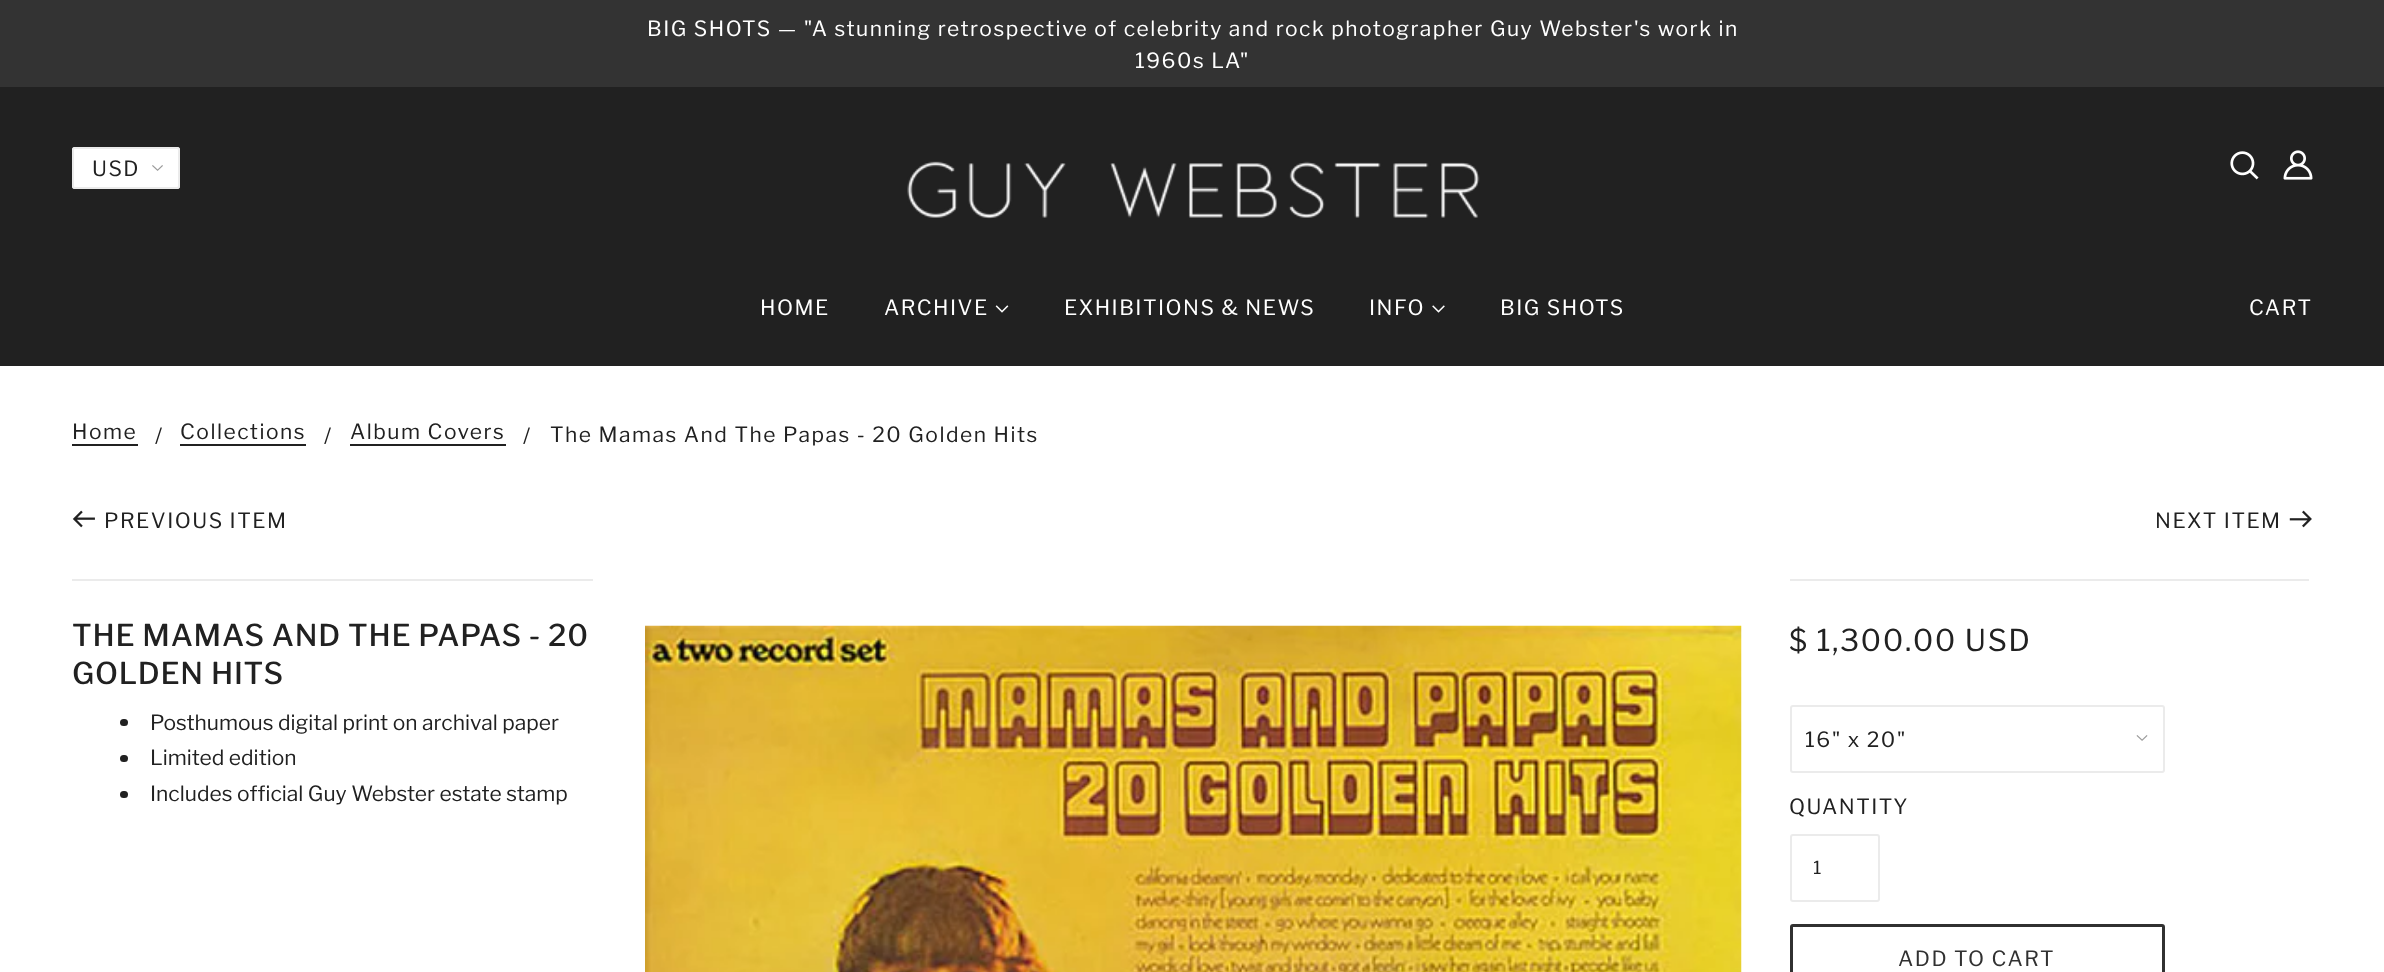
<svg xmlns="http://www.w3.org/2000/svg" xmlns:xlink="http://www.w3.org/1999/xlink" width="2384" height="972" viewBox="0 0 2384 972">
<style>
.cls-1{font:21px Libre Franklin;letter-spacing:1.5px;fill:#ffffff}
.cls-2{font:21px Libre Franklin;letter-spacing:1.5px;fill:#212121}
.cls-3{font:21px Libre Franklin;fill:#212121}
.cls-4{font:500 30px Libre Franklin;letter-spacing:0.75px;fill:#212121}
.cls-5{font:30px Libre Franklin;letter-spacing:1.5px;fill:#212121}
.cls-6{font:18px Libre Franklin;letter-spacing:1px;fill:#212121}
.cls-7{font:21px Libre Franklin;letter-spacing:1.5px;fill:#313131}
</style>
<defs>
<clipPath id="clip1"><rect x="1814" y="857" width="30" height="22"/></clipPath>
</defs>
<rect width="100%" height="100%" fill="#ffffff"/>
<rect fill="#333333" x="0" y="0" width="2384" height="87"/>
<rect fill="#212121" x="0" y="87" width="2384" height="279"/>
<rect fill="#ffffff" x="72" y="147" width="108" height="42" rx="3"/>
<image xlink:href="image0.png" x="152" y="165" width="11" height="6"/>
<rect fill="none" stroke="#ebebeb" stroke-width="2" x="73" y="148" width="106" height="40" rx="2"/>
<image xlink:href="image1.png" x="907" y="161" width="573" height="58"/>
<image xlink:href="image2.png" x="2230" y="151" width="29" height="29"/>
<image xlink:href="image3.png" x="2283" y="150" width="30" height="30"/>
<image xlink:href="image4.png" x="995" y="305" width="14" height="8"/>
<image xlink:href="image5.png" x="1432" y="305" width="13" height="8"/>
<rect fill="#212121" x="72" y="444" width="66" height="2"/>
<rect fill="#212121" x="180" y="444" width="126" height="2"/>
<rect fill="#212121" x="350" y="444" width="156" height="2"/>
<image xlink:href="image6.png" x="72" y="510" width="23" height="18"/>
<rect fill="#ebebeb" x="72" y="579" width="521" height="2"/>
<image xlink:href="image7.png" x="2289" y="510" width="23" height="18"/>
<rect fill="#ebebeb" x="1790" y="579" width="519" height="2"/>
<image xlink:href="image8.png" x="645" y="625" width="1097" height="347"/>
<image xlink:href="image9.png" x="2136" y="735" width="12" height="6"/>
<rect fill="none" stroke="#ebebeb" stroke-width="2" x="1791" y="706" width="373" height="66" rx="2"/>
<rect fill="none" stroke="#ebebeb" stroke-width="2" x="1791" y="835" width="88" height="66" rx="2"/>
<rect fill="none" stroke="#313131" stroke-width="3" x="1791.5" y="925.5" width="372" height="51" rx="1.5"/>
<rect fill="#212121" x="120" y="719" width="8" height="7" rx="3.5"/>
<rect fill="#212121" x="120" y="755" width="8" height="7" rx="3.5"/>
<rect fill="#212121" x="120" y="791" width="8" height="7" rx="3.5"/>
<text class="cls-1" x="647" y="36">BIG SHOTS — "A stunning retrospective of celebrity and rock photographer Guy Webster's work in</text>
<text class="cls-1" x="1135" y="68">1960s LA"</text>
<text class="cls-2" x="92" y="176">USD</text>
<text class="cls-1" x="760" y="315">HOME</text>
<text class="cls-1" x="884" y="315">ARCHIVE</text>
<text class="cls-1" x="1064" y="315">EXHIBITIONS &amp; NEWS</text>
<text class="cls-1" x="1369" y="315">INFO</text>
<text class="cls-1" x="1500" y="315">BIG SHOTS</text>
<text class="cls-1" x="2249" y="315">CART</text>
<text class="cls-2" x="72" y="439">Home</text>
<text class="cls-3" x="155" y="443">/</text>
<text class="cls-2" x="180" y="439">Collections</text>
<text class="cls-3" x="324" y="443">/</text>
<text class="cls-2" x="350" y="439">Album Covers</text>
<text class="cls-2" x="523" y="443">/</text>
<text class="cls-2" x="550" y="442">The Mamas And The Papas - 20 Golden Hits</text>
<text class="cls-2" x="104" y="528">PREVIOUS ITEM</text>
<text class="cls-2" x="2155" y="528">NEXT ITEM</text>
<text class="cls-4"><tspan x="72" y="646">THE MAMAS AND THE PAPAS - 20</tspan><tspan x="72" y="684">GOLDEN HITS</tspan></text>
<text class="cls-5" x="1789" y="651">$ 1,300.00 USD</text>
<text class="cls-2" x="1805" y="747">16" x 20"</text>
<text class="cls-2" x="1789" y="814">QUANTITY</text>
<g clip-path="url(#clip1)">
<text class="cls-6" x="1813" y="874">1</text>
</g>
<text class="cls-7" x="1898" y="966">ADD TO CART</text>
<text class="cls-3"><tspan x="150" y="730">Posthumous digital print on archival paper</tspan><tspan x="150" y="765">Limited edition</tspan><tspan x="150" y="801">Includes official Guy Webster estate stamp</tspan></text>
</svg>
